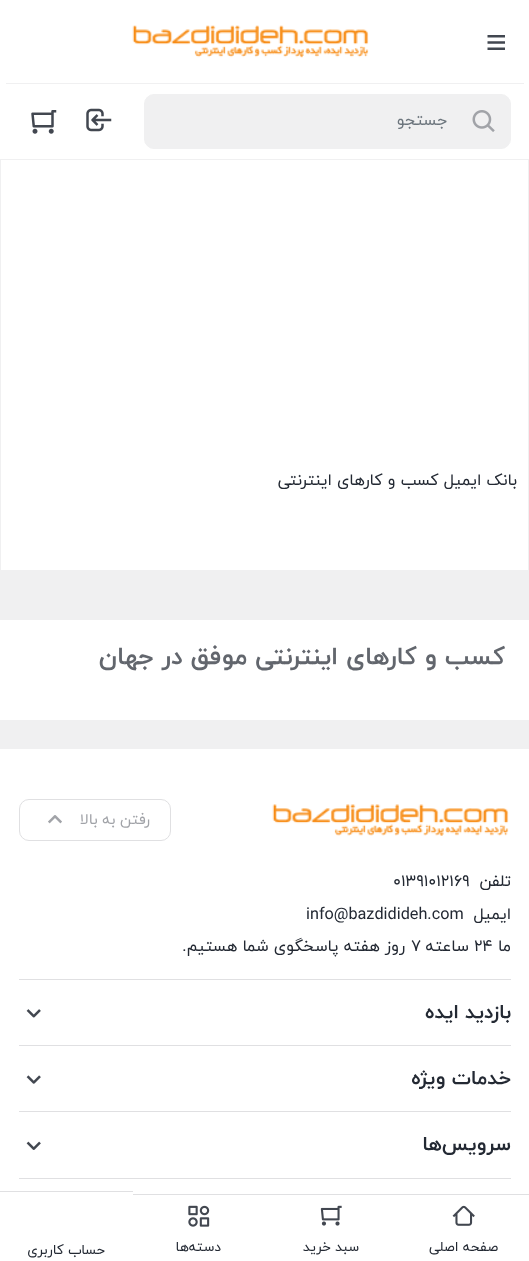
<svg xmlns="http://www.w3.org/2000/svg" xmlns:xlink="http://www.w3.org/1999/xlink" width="529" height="1261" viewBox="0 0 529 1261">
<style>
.cls-1{font:16.25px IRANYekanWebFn;direction:rtl;fill:#6c757d}
.cls-2{font:16.25px IRANYekanWebFn;direction:rtl;fill:#232933}
.cls-3{font:bold 25px IRANYekanWebFn;direction:rtl;fill:#62666d}
.cls-4{font:15px IRANYekanWebFn;direction:rtl;fill:#a1a3a8}
.cls-5{font:16.25px IRANYekanWebFn;fill:#232933}
.cls-6{font:bold 20px IRANYekanWebFn;direction:rtl;fill:#232933}
.cls-7{font:13.75px IRANYekanWebFn;direction:rtl;fill:#232933}
</style>
<rect width="100%" height="100%" fill="#f0f0f1"/>
<rect fill="#ffffff" x="0" y="0" width="529" height="159"/>
<rect fill="#f0f0f1" x="6" y="83" width="518" height="1"/>
<image xlink:href="image0.png" x="487" y="35" width="18" height="15"/>
<image xlink:href="image1.png" x="132" y="25" width="237" height="33"/>
<rect fill="#f0f0f1" stroke="#f0f0f1" x="144.5" y="94.5" width="366" height="54" rx="9.5"/>
<image xlink:href="image2.png" x="472" y="110" width="23" height="22"/>
<image xlink:href="image3.png" x="86" y="108" width="26" height="24"/>
<image xlink:href="image4.png" x="31" y="110" width="26" height="24"/>
<rect fill="#ffffff" x="1" y="160" width="527" height="410"/>
<rect fill="#ffffff" x="0" y="620" width="529" height="100"/>
<rect fill="#ffffff" x="0" y="749" width="529" height="512"/>
<image xlink:href="image5.png" x="272" y="804" width="237" height="32"/>
<rect fill="none" stroke="#e0e0e2" x="19.5" y="799.5" width="151" height="41" rx="9.5"/>
<image xlink:href="image6.png" x="48" y="815" width="14" height="9"/>
<rect fill="#e0e0e2" x="19" y="979" width="492" height="1"/>
<rect fill="#e0e0e2" x="19" y="1045" width="492" height="1"/>
<image xlink:href="image7.png" x="26" y="1009" width="15" height="9"/>
<rect fill="#e0e0e2" x="19" y="1111" width="492" height="1"/>
<image xlink:href="image8.png" x="26" y="1075" width="15" height="9"/>
<rect fill="#e0e0e2" x="19" y="1178" width="492" height="1"/>
<image xlink:href="image9.png" x="26" y="1141" width="15" height="9"/>
<rect fill="#e0e0e2" x="133" y="1194" width="396" height="1"/>
<image xlink:href="image10.png" x="452" y="1205" width="23" height="21"/>
<image xlink:href="image11.png" x="320" y="1205" width="22" height="21"/>
<image xlink:href="image12.png" x="188" y="1205" width="22" height="22"/>
<rect fill="#e0e0e2" x="0" y="1191" width="133" height="1"/>
<text class="cls-1" x="447" y="125">جستجو</text>
<text class="cls-2" x="517" y="485">بانک ایمیل کسب و کارهای اینترنتی</text>
<text class="cls-3" x="505" y="664">کسب و کارهای اینترنتی موفق در جهان</text>
<text class="cls-4" x="150" y="824">رفتن به بالا</text>
<text class="cls-2" x="511" y="886">تلفن</text>
<text class="cls-5" x="393" y="886">01391012169</text>
<text class="cls-2" x="511" y="919">ایمیل</text>
<text class="cls-5" x="306" y="919">info@bazdidideh.com</text>
<text class="cls-2" x="511" y="951">ما</text>
<text class="cls-5" x="474" y="951">24</text>
<text class="cls-2" x="469" y="951">ساعته</text>
<text class="cls-5" x="411" y="951">7</text>
<text class="cls-2" x="405" y="951">روز هفته پاسخگوی شما هستیم.</text>
<text class="cls-6" x="511" y="1018">بازدید ایده</text>
<text class="cls-6" x="511" y="1084">خدمات ویژه</text>
<text class="cls-6" x="511" y="1150">سرویس‌ها</text>
<text class="cls-7" x="498" y="1251">صفحه اصلی</text>
<text class="cls-7" x="359" y="1251">سبد خرید</text>
<text class="cls-7" x="221" y="1251">دسته‌ها</text>
<text class="cls-7" x="105" y="1254">حساب کاربری</text>
</svg>
